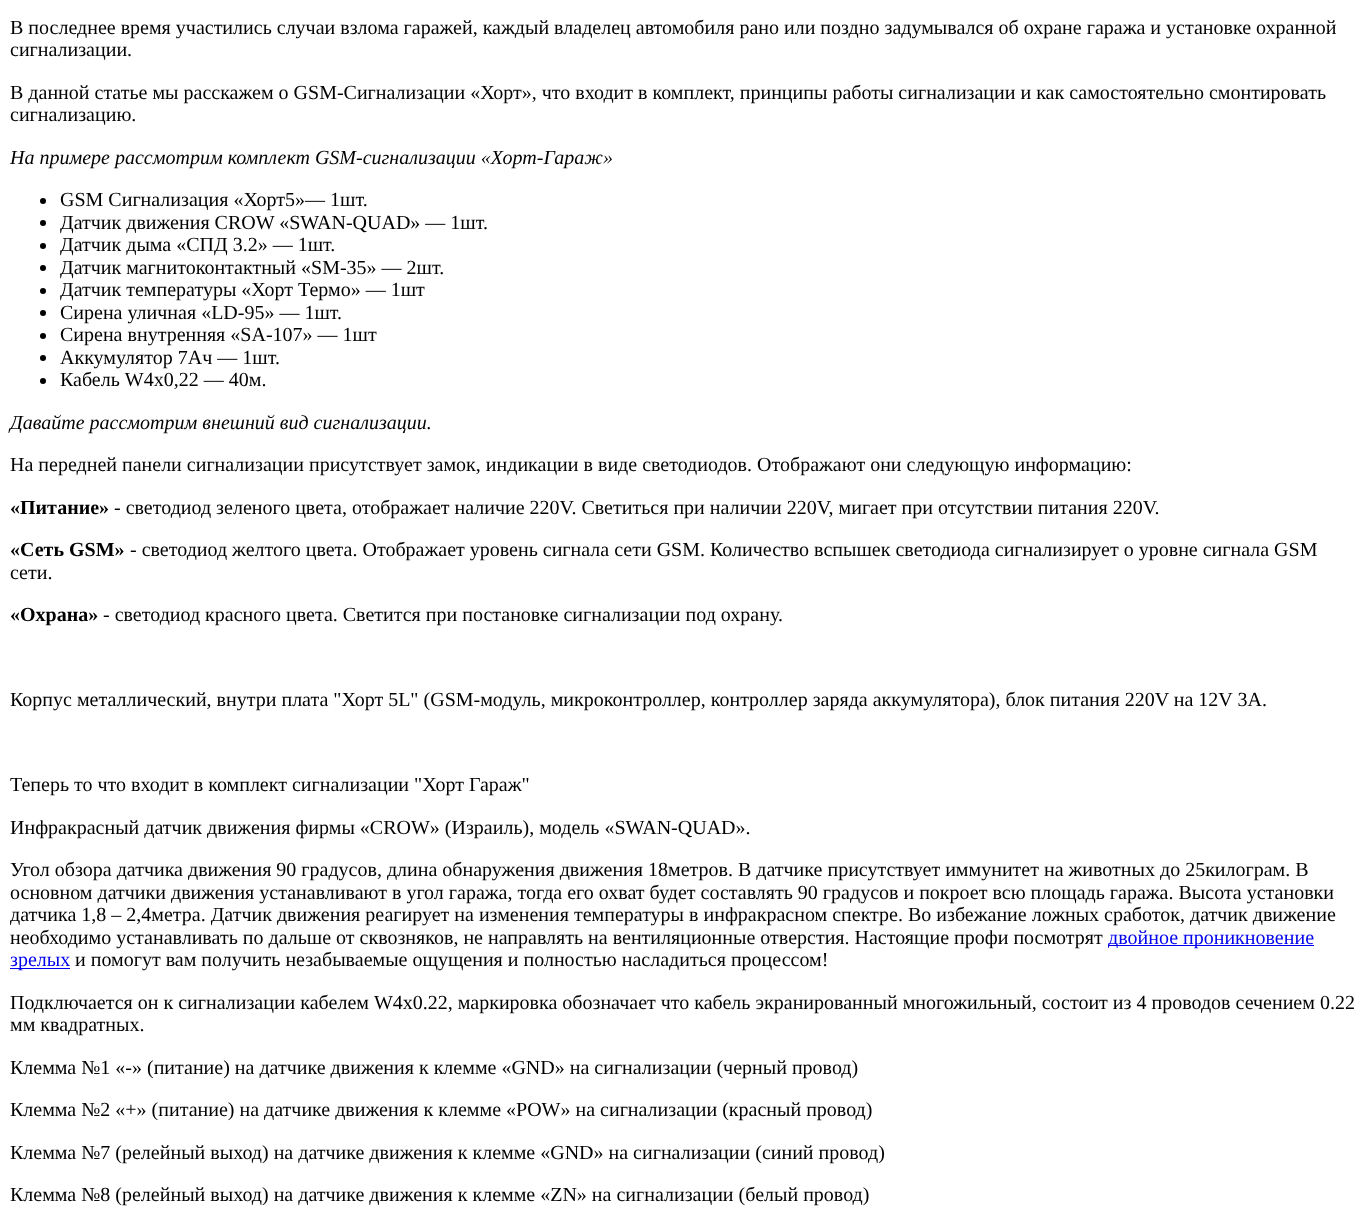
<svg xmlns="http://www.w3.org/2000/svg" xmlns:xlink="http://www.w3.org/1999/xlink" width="1372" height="1212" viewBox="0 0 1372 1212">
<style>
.cls-1{font:20px Liberation Serif;fill:#000000}
.cls-2{font:italic 20px Liberation Serif;fill:#000000}
.cls-3{font:bold 20px Liberation Serif;fill:#000000}
.cls-4{font:20px Liberation Serif;fill:#0000ee}
</style>
<rect width="100%" height="100%" fill="#ffffff"/>
<circle fill="#000000" cx="43" cy="201" r="3"/>
<circle fill="#000000" cx="43" cy="223" r="3"/>
<circle fill="#000000" cx="43" cy="246" r="3"/>
<circle fill="#000000" cx="43" cy="268" r="3"/>
<circle fill="#000000" cx="43" cy="291" r="3"/>
<circle fill="#000000" cx="43" cy="313" r="3"/>
<circle fill="#000000" cx="43" cy="336" r="3"/>
<circle fill="#000000" cx="43" cy="358" r="3"/>
<circle fill="#000000" cx="43" cy="381" r="3"/>
<rect fill="#0000ee" x="1108" y="945" width="206" height="1"/>
<rect fill="#0000ee" x="10" y="968" width="60" height="1"/>
<text class="cls-1"><tspan x="10" y="34">В последнее время участились случаи взлома гаражей, каждый владелец автомобиля рано или поздно задумывался об охране гаража и установке охранной</tspan><tspan x="10" y="56">сигнализации.</tspan></text>
<text class="cls-1"><tspan x="10" y="99">В данной статье мы расскажем о GSM-Сигнализации «Хорт», что входит в комплект, принципы работы сигнализации и как самостоятельно смонтировать</tspan><tspan x="10" y="121">сигнализацию.</tspan></text>
<text class="cls-2" x="10" y="164">На примере рассмотрим комплект GSM-сигнализации «Хорт-Гараж»</text>
<text class="cls-1"><tspan x="60" y="206">GSM Сигнализация «Хорт5»— 1шт.</tspan><tspan x="60" y="229">Датчик движения CROW «SWAN-QUAD» — 1шт.</tspan><tspan x="60" y="251">Датчик дыма «СПД 3.2» — 1шт.</tspan><tspan x="60" y="274">Датчик магнитоконтактный «SM-35» — 2шт.</tspan><tspan x="60" y="296">Датчик температуры «Хорт Термо» — 1шт</tspan><tspan x="60" y="319">Сирена уличная «LD-95» — 1шт.</tspan><tspan x="60" y="341">Сирена внутренняя «SA-107» — 1шт</tspan><tspan x="60" y="364">Аккумулятор 7Ач — 1шт.</tspan><tspan x="60" y="386">Кабель W4x0,22 — 40м.</tspan></text>
<text class="cls-2" x="10" y="429">Давайте рассмотрим внешний вид сигнализации.</text>
<text class="cls-1" x="10" y="471">На передней панели сигнализации присутствует замок, индикации в виде светодиодов. Отображают они следующую информацию:</text>
<text class="cls-3" x="10" y="514">«Питание»</text>
<text class="cls-1" x="114" y="514">- светодиод зеленого цвета, отображает наличие 220V. Светиться при наличии 220V, мигает при отсутствии питания 220V.</text>
<text class="cls-3" x="10" y="556">«Сеть GSM»</text>
<text class="cls-1" x="130" y="556">- светодиод желтого цвета. Отображает уровень сигнала сети GSM. Количество вспышек светодиода сигнализирует о уровне сигнала GSM</text>
<text class="cls-1" x="10" y="579">сети.</text>
<text class="cls-3" x="10" y="621">«Охрана»</text>
<text class="cls-1" x="103" y="621">- светодиод красного цвета. Светится при постановке сигнализации под охрану.</text>
<text class="cls-1" x="10" y="706">Корпус металлический, внутри плата "Хорт 5L" (GSM-модуль, микроконтроллер, контроллер заряда аккумулятора), блок питания 220V на 12V 3A.</text>
<text class="cls-1" x="10" y="791">Теперь то что входит в комплект сигнализации "Хорт Гараж"</text>
<text class="cls-1" x="10" y="834">Инфракрасный датчик движения фирмы «CROW» (Израиль), модель «SWAN-QUAD».</text>
<text class="cls-1"><tspan x="10" y="876">Угол обзора датчика движения 90 градусов, длина обнаружения движения 18метров. В датчике присутствует иммунитет на животных до 25килограм. В</tspan><tspan x="10" y="899">основном датчики движения устанавливают в угол гаража, тогда его охват будет составлять 90 градусов и покроет всю площадь гаража. Высота установки</tspan><tspan x="10" y="921">датчика 1,8 – 2,4метра. Датчик движения реагирует на изменения температуры в инфракрасном спектре. Во избежание ложных сработок, датчик движение</tspan><tspan x="10" y="944">необходимо устанавливать по дальше от сквозняков, не направлять на вентиляционные отверстия. Настоящие профи посмотрят</tspan></text>
<text class="cls-4" x="1108" y="944">двойное проникновение</text>
<text class="cls-4" x="10" y="966">зрелых</text>
<text class="cls-1" x="75" y="966">и помогут вам получить незабываемые ощущения и полностью насладиться процессом!</text>
<text class="cls-1"><tspan x="10" y="1009">Подключается он к сигнализации кабелем W4x0.22, маркировка обозначает что кабель экранированный многожильный, состоит из 4 проводов сечением 0.22</tspan><tspan x="10" y="1031">мм квадратных.</tspan></text>
<text class="cls-1" x="10" y="1074">Клемма №1 «-» (питание) на датчике движения к клемме «GND» на сигнализации (черный провод)</text>
<text class="cls-1" x="10" y="1116">Клемма №2 «+» (питание) на датчике движения к клемме «POW» на сигнализации (красный провод)</text>
<text class="cls-1" x="10" y="1159">Клемма №7 (релейный выход) на датчике движения к клемме «GND» на сигнализации (синий провод)</text>
<text class="cls-1" x="10" y="1201">Клемма №8 (релейный выход) на датчике движения к клемме «ZN» на сигнализации (белый провод)</text>
</svg>
